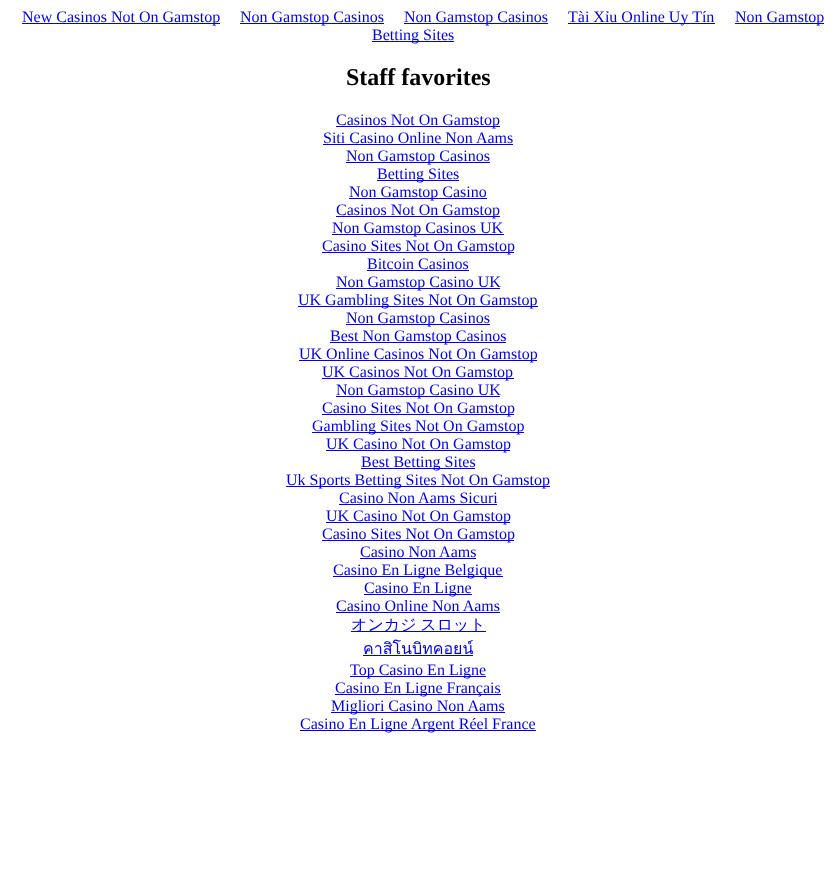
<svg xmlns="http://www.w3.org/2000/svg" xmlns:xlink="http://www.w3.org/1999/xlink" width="836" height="889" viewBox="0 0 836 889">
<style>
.cls-1{font:16px Liberation Serif;fill:#0000ee}
.cls-2{font:bold 24px Liberation Serif;fill:#000000}
.cls-3{font:500 16px WenQuanYi Zen Hei;fill:#0000ee}
.cls-4{font:16px Loma;fill:#0000ee}
</style>
<rect width="100%" height="100%" fill="#ffffff"/>
<rect fill="#0000ee" x="22" y="23" width="198" height="1"/>
<rect fill="#0000ee" x="240" y="23" width="144" height="1"/>
<rect fill="#0000ee" x="404" y="23" width="144" height="1"/>
<rect fill="#0000ee" x="568" y="23" width="147" height="1"/>
<rect fill="#0000ee" x="735" y="23" width="89" height="1"/>
<rect fill="#0000ee" x="372" y="41" width="82" height="1"/>
<rect fill="#0000ee" x="336" y="126" width="164" height="1"/>
<rect fill="#0000ee" x="323" y="144" width="190" height="1"/>
<rect fill="#0000ee" x="346" y="162" width="144" height="1"/>
<rect fill="#0000ee" x="377" y="180" width="82" height="1"/>
<rect fill="#0000ee" x="349" y="198" width="138" height="1"/>
<rect fill="#0000ee" x="336" y="216" width="164" height="1"/>
<rect fill="#0000ee" x="332" y="234" width="172" height="1"/>
<rect fill="#0000ee" x="322" y="252" width="192" height="1"/>
<rect fill="#0000ee" x="367" y="270" width="102" height="1"/>
<rect fill="#0000ee" x="336" y="288" width="164" height="1"/>
<rect fill="#0000ee" x="298" y="306" width="240" height="1"/>
<rect fill="#0000ee" x="346" y="324" width="144" height="1"/>
<rect fill="#0000ee" x="330" y="342" width="176" height="1"/>
<rect fill="#0000ee" x="299" y="360" width="238" height="1"/>
<rect fill="#0000ee" x="322" y="378" width="192" height="1"/>
<rect fill="#0000ee" x="336" y="396" width="164" height="1"/>
<rect fill="#0000ee" x="322" y="414" width="192" height="1"/>
<rect fill="#0000ee" x="312" y="432" width="212" height="1"/>
<rect fill="#0000ee" x="326" y="450" width="184" height="1"/>
<rect fill="#0000ee" x="361" y="468" width="114" height="1"/>
<rect fill="#0000ee" x="286" y="486" width="264" height="1"/>
<rect fill="#0000ee" x="339" y="504" width="158" height="1"/>
<rect fill="#0000ee" x="326" y="522" width="184" height="1"/>
<rect fill="#0000ee" x="322" y="540" width="192" height="1"/>
<rect fill="#0000ee" x="360" y="558" width="116" height="1"/>
<rect fill="#0000ee" x="333" y="576" width="170" height="1"/>
<rect fill="#0000ee" x="364" y="594" width="108" height="1"/>
<rect fill="#0000ee" x="336" y="612" width="164" height="1"/>
<rect fill="#0000ee" x="351" y="631" width="135" height="1"/>
<rect fill="#0000ee" x="363" y="655" width="110" height="1"/>
<rect fill="#0000ee" x="350" y="676" width="136" height="1"/>
<rect fill="#0000ee" x="335" y="694" width="166" height="1"/>
<rect fill="#0000ee" x="331" y="712" width="174" height="1"/>
<rect fill="#0000ee" x="300" y="730" width="236" height="1"/>
<text class="cls-1" x="22" y="22">New Casinos Not On Gamstop</text>
<text class="cls-1" x="240" y="22">Non Gamstop Casinos</text>
<text class="cls-1" x="404" y="22">Non Gamstop Casinos</text>
<text class="cls-1" x="568" y="22">Tài Xỉu Online Uy Tín</text>
<text class="cls-1" x="735" y="22">Non Gamstop</text>
<text class="cls-1" x="372" y="40">Betting Sites</text>
<text class="cls-2" x="346" y="85">Staff favorites</text>
<text class="cls-1" x="336" y="125">Casinos Not On Gamstop</text>
<text class="cls-1" x="323" y="143">Siti Casino Online Non Aams</text>
<text class="cls-1" x="346" y="161">Non Gamstop Casinos</text>
<text class="cls-1" x="377" y="179">Betting Sites</text>
<text class="cls-1" x="349" y="197">Non Gamstop Casino</text>
<text class="cls-1" x="336" y="215">Casinos Not On Gamstop</text>
<text class="cls-1" x="332" y="233">Non Gamstop Casinos UK</text>
<text class="cls-1" x="322" y="251">Casino Sites Not On Gamstop</text>
<text class="cls-1" x="367" y="269">Bitcoin Casinos</text>
<text class="cls-1" x="336" y="287">Non Gamstop Casino UK</text>
<text class="cls-1" x="298" y="305">UK Gambling Sites Not On Gamstop</text>
<text class="cls-1" x="346" y="323">Non Gamstop Casinos</text>
<text class="cls-1" x="330" y="341">Best Non Gamstop Casinos</text>
<text class="cls-1" x="299" y="359">UK Online Casinos Not On Gamstop</text>
<text class="cls-1" x="322" y="377">UK Casinos Not On Gamstop</text>
<text class="cls-1" x="336" y="395">Non Gamstop Casino UK</text>
<text class="cls-1" x="322" y="413">Casino Sites Not On Gamstop</text>
<text class="cls-1" x="312" y="431">Gambling Sites Not On Gamstop</text>
<text class="cls-1" x="326" y="449">UK Casino Not On Gamstop</text>
<text class="cls-1" x="361" y="467">Best Betting Sites</text>
<text class="cls-1" x="286" y="485">Uk Sports Betting Sites Not On Gamstop</text>
<text class="cls-1" x="339" y="503">Casino Non Aams Sicuri</text>
<text class="cls-1" x="326" y="521">UK Casino Not On Gamstop</text>
<text class="cls-1" x="322" y="539">Casino Sites Not On Gamstop</text>
<text class="cls-1" x="360" y="557">Casino Non Aams</text>
<text class="cls-1" x="333" y="575">Casino En Ligne Belgique</text>
<text class="cls-1" x="364" y="593">Casino En Ligne</text>
<text class="cls-1" x="336" y="611">Casino Online Non Aams</text>
<text class="cls-3" x="351" y="630" word-spacing="-1">オンカジ スロット</text>
<text class="cls-4" x="363" y="654">คาสิโนบิทคอยน์</text>
<text class="cls-1" x="350" y="675">Top Casino En Ligne</text>
<text class="cls-1" x="335" y="693">Casino En Ligne Français</text>
<text class="cls-1" x="331" y="711">Migliori Casino Non Aams</text>
<text class="cls-1" x="300" y="729">Casino En Ligne Argent Réel France</text>
</svg>
